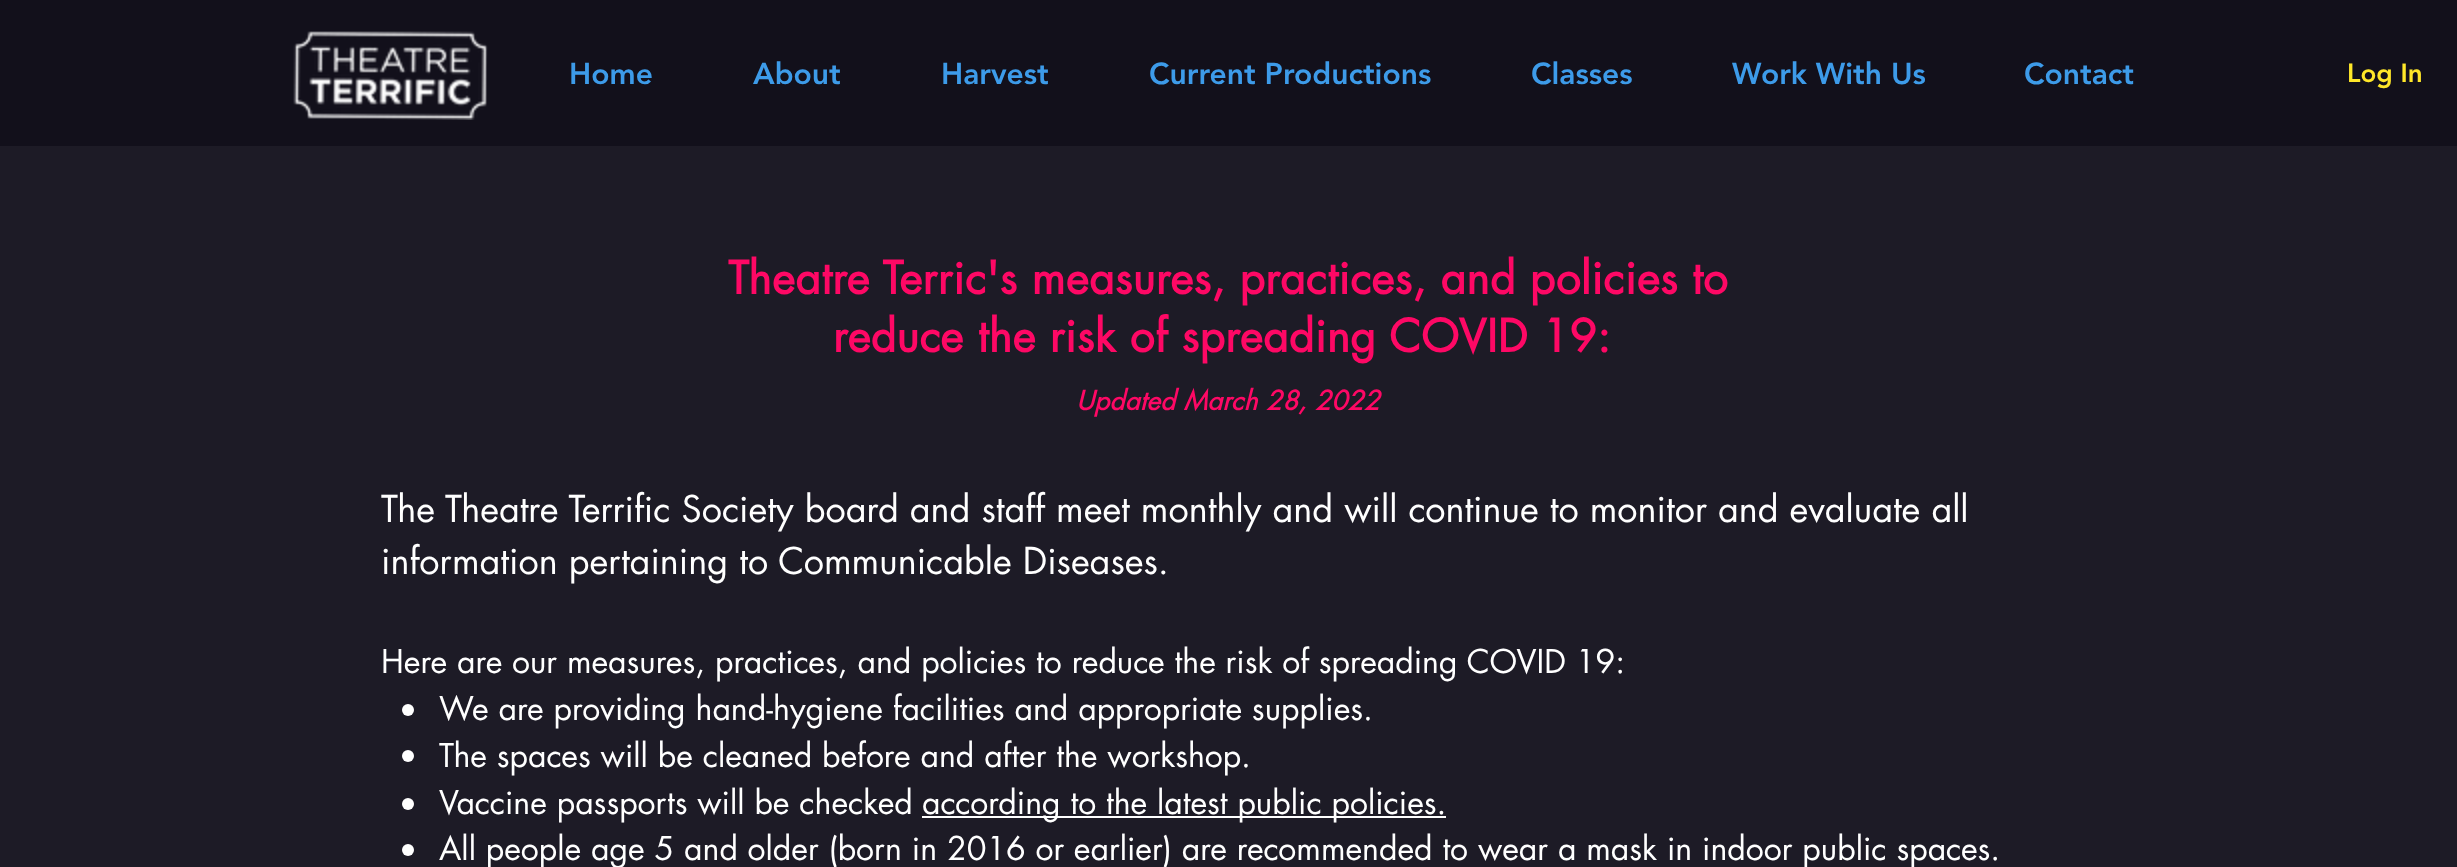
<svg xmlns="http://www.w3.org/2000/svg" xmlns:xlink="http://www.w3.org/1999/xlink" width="2457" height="867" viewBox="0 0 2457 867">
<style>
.cls-1{font:900 30px 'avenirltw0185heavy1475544';fill:#3d9be9}
.cls-2{font:900 26px 'avenirltw0185heavy1475544';fill:#ffe729}
.cls-3{font:bold 44px futura;letter-spacing:0.45px;fill:#fe0865}
.cls-4{font:italic bold 26px futura;letter-spacing:0.25px;fill:#fe0865}
.cls-5{font:36px futura;fill:#ffffff}
.cls-6{font:32px futura;fill:#ffffff}
</style>
<rect width="100%" height="100%" fill="#1d1b26"/>
<rect fill="#12101b" x="0" y="0" width="2457" height="146"/>
<image xlink:href="image0.png" x="293" y="31" width="195" height="89"/>
<circle fill="#ffffff" cx="408" cy="710" r="6"/>
<circle fill="#ffffff" cx="408" cy="756" r="6"/>
<circle fill="#ffffff" cx="408" cy="804" r="6"/>
<rect fill="#ffffff" x="922" y="816" width="524" height="2"/>
<circle fill="#ffffff" cx="408" cy="850" r="6"/>
<text class="cls-1" x="569" y="84">Home</text>
<text class="cls-1" x="753" y="84">About</text>
<text class="cls-1" x="941" y="84">Harvest</text>
<text class="cls-1" x="1149" y="84">Current Productions</text>
<text class="cls-1" x="1531" y="84">Classes</text>
<text class="cls-1" x="1732" y="84">Work With Us</text>
<text class="cls-1" x="2024" y="84">Contact</text>
<text class="cls-2" x="2347" y="82">Log In</text>
<text class="cls-3" x="728" y="294">Theatre Terric's measures, practices, and policies to</text>
<text class="cls-3" x="833" y="352">reduce the risk of spreading COVID 19:</text>
<text class="cls-4" x="1076" y="410">Updated March 28, 2022</text>
<text class="cls-5"><tspan x="381" y="522">The Theatre Terrific Society board and staff meet monthly and will continue to monitor and evaluate all</tspan><tspan x="381" y="574">information pertaining to Communicable Diseases.</tspan></text>
<text class="cls-6" x="381" y="673">Here are our measures, practices, and policies to reduce the risk of spreading COVID 19:</text>
<text class="cls-6"><tspan x="439" y="720">We are providing hand-hygiene facilities and appropriate supplies.</tspan><tspan x="439" y="767">The spaces will be cleaned before and after the workshop.</tspan><tspan x="439" y="814">Vaccine passports will be checked</tspan></text>
<text class="cls-6" x="922" y="814">according to the latest public policies.</text>
<text class="cls-6" x="439" y="860">All people age 5 and older (born in 2016 or earlier) are recommended to wear a mask in indoor public spaces.</text>
</svg>
